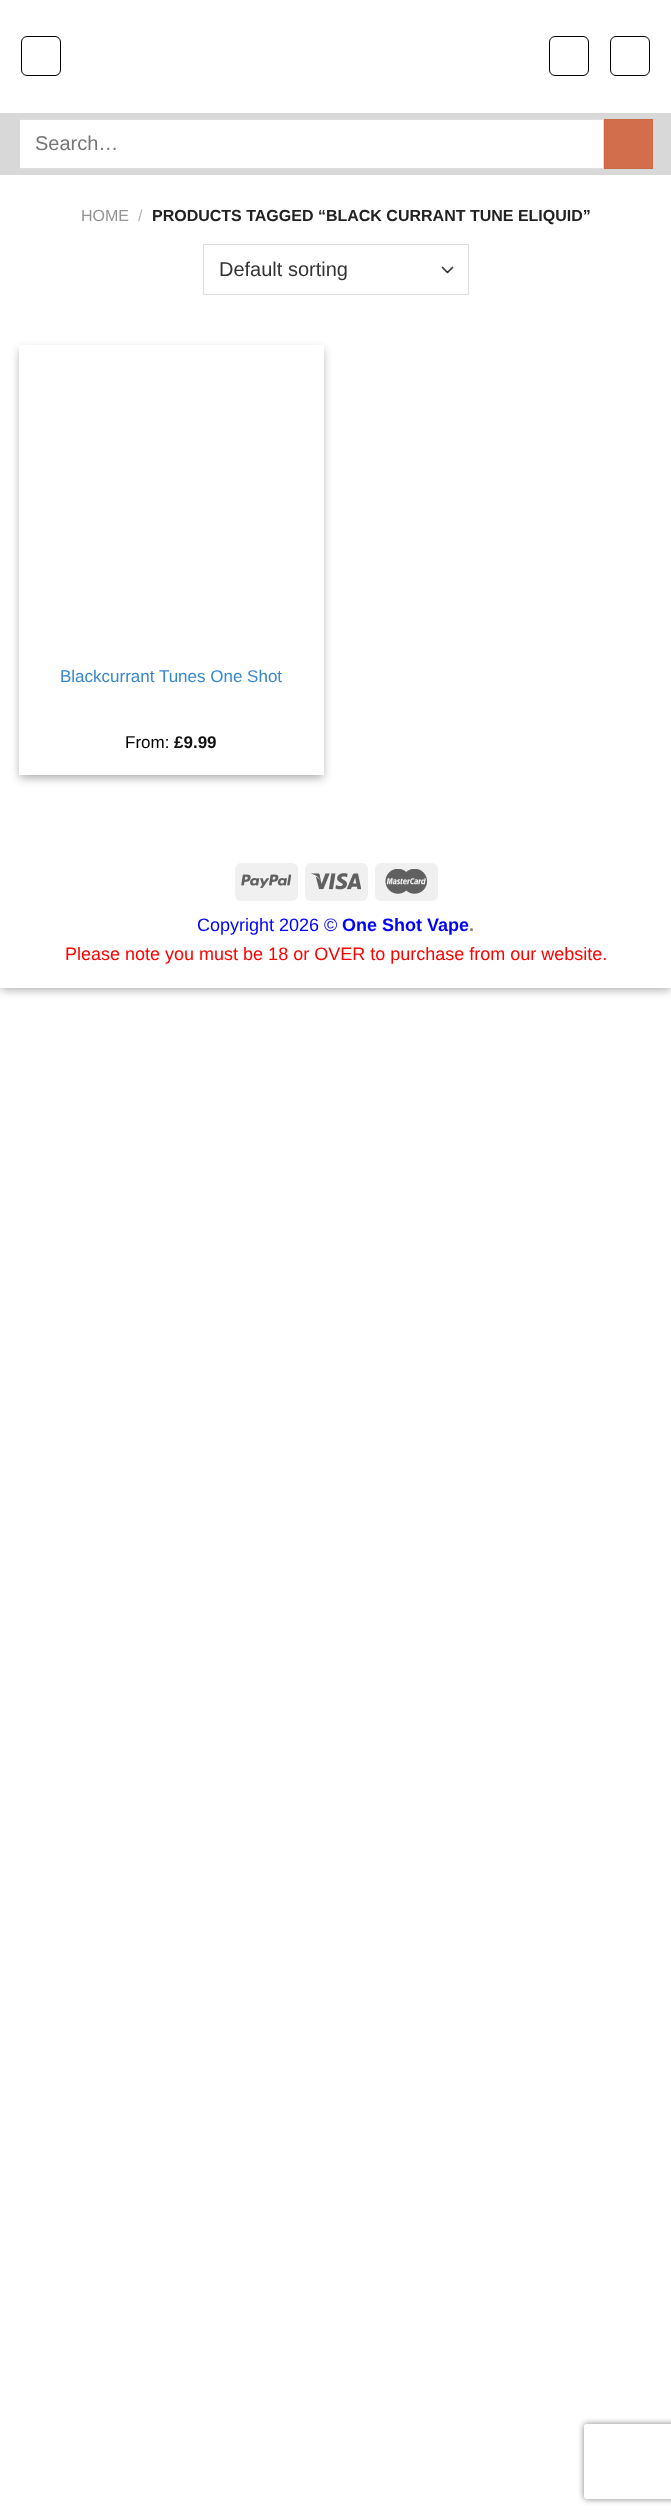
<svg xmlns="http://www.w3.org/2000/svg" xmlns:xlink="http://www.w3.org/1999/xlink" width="671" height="2516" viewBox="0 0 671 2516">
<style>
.cls-1{font:20px Liberation Sans;fill:#757575}
.cls-2{font:16px Liberation Sans;fill:#949494}
.cls-3{font:16px Liberation Sans;fill:#b2b2b2}
.cls-4{font:bold 16px Liberation Sans;fill:#222222}
.cls-5{font:20px Liberation Sans;fill:#333333}
.cls-6{font:17px Liberation Sans;fill:#3787d1}
.cls-7{font:17px Liberation Sans;fill:#000000}
.cls-8{font:bold 17px Liberation Sans;fill:#111111}
.cls-9{font:18px Liberation Sans;fill:#0000ff}
.cls-10{font:bold 18px Liberation Sans;fill:#0000ff}
.cls-11{font:bold 18px Liberation Sans;fill:#808080}
.cls-12{font:18px Liberation Sans;fill:#ff0000}
</style>
<defs>
<clipPath id="clip1"><path d="M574 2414H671V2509H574ZM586.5 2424H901.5C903 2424 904 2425 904 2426.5V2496.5C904 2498 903 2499 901.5 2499H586.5C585 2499 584 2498 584 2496.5V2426.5C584 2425 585 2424 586.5 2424Z" clip-rule="evenodd"/></clipPath>
</defs>
<rect width="100%" height="100%" fill="#ffffff"/>
<rect fill="#000000" fill-opacity="0.23" filter="blur(4px)" x="0" y="4" width="671" height="987"/>
<rect fill="#000000" fill-opacity="0.16" filter="blur(4px)" x="5" y="9" width="661" height="977"/>
<rect fill="#ffffff" x="0" y="0" width="671" height="988"/>
<rect fill="none" stroke="#000000" x="21.5" y="36.5" width="39" height="39" rx="5.5"/>
<rect fill="none" stroke="#000000" x="549.5" y="36.5" width="39" height="39" rx="5.5"/>
<rect fill="none" stroke="#000000" x="610.5" y="36.5" width="39" height="39" rx="5.5"/>
<rect fill="#d8d8d8" x="0" y="113" width="671" height="62"/>
<rect fill="#ffffff" stroke="#dddddd" x="19.5" y="119.5" width="584" height="49"/>
<rect fill="#d26e4b" stroke="#c86947" x="604.5" y="119.5" width="48" height="49"/>
<path fill="none" stroke="#333333" stroke-width="1.7" stroke-linecap="round" stroke-linejoin="round" d="M442.5 267.5L447.5 272.5L452.5 267.5"/>
<rect fill="none" stroke="#dddddd" x="203.5" y="244.5" width="265" height="50"/>
<rect fill="#000000" fill-opacity="0.23" filter="blur(4px)" x="19" y="349" width="305" height="430"/>
<rect fill="#000000" fill-opacity="0.16" filter="blur(4px)" x="24" y="354" width="295" height="420"/>
<rect fill="#ffffff" x="19" y="345" width="305" height="430"/>
<rect fill="#f0f0f0" x="235" y="863" width="63" height="38" rx="6"/>
<image xlink:href="image0.png" x="241" y="874" width="50" height="14"/>
<rect fill="#f0f0f0" x="305" y="863" width="63" height="38" rx="6"/>
<image xlink:href="image1.png" x="311" y="873" width="50" height="17"/>
<rect fill="#f0f0f0" x="375" y="863" width="63" height="38" rx="6"/>
<image xlink:href="image2.png" x="385" y="869" width="43" height="25"/>
<g clip-path="url(#clip1)">
<rect fill="#808080" filter="blur(3px)" x="584" y="2424" width="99" height="75" rx="2.5"/>
</g>
<text class="cls-1" x="35" y="150">Search…</text>
<text class="cls-2" x="81" y="221">HOME</text>
<text class="cls-3" x="138" y="221">/</text>
<text class="cls-4" x="152" y="221">PRODUCTS TAGGED “BLACK CURRANT TUNE ELIQUID”</text>
<text class="cls-5" x="219" y="276">Default sorting</text>
<text class="cls-6" x="60" y="682">Blackcurrant Tunes One Shot</text>
<text class="cls-7" x="125" y="748">From:</text>
<text class="cls-8" x="174" y="748">£9.99</text>
<text class="cls-9" x="197" y="931">Copyright 2026 ©</text>
<text class="cls-10" x="342" y="931">One Shot Vape</text>
<text class="cls-11" x="469" y="931">.</text>
<text class="cls-12" x="65" y="960">Please note you must be 18 or OVER to purchase from our website.</text>
</svg>
